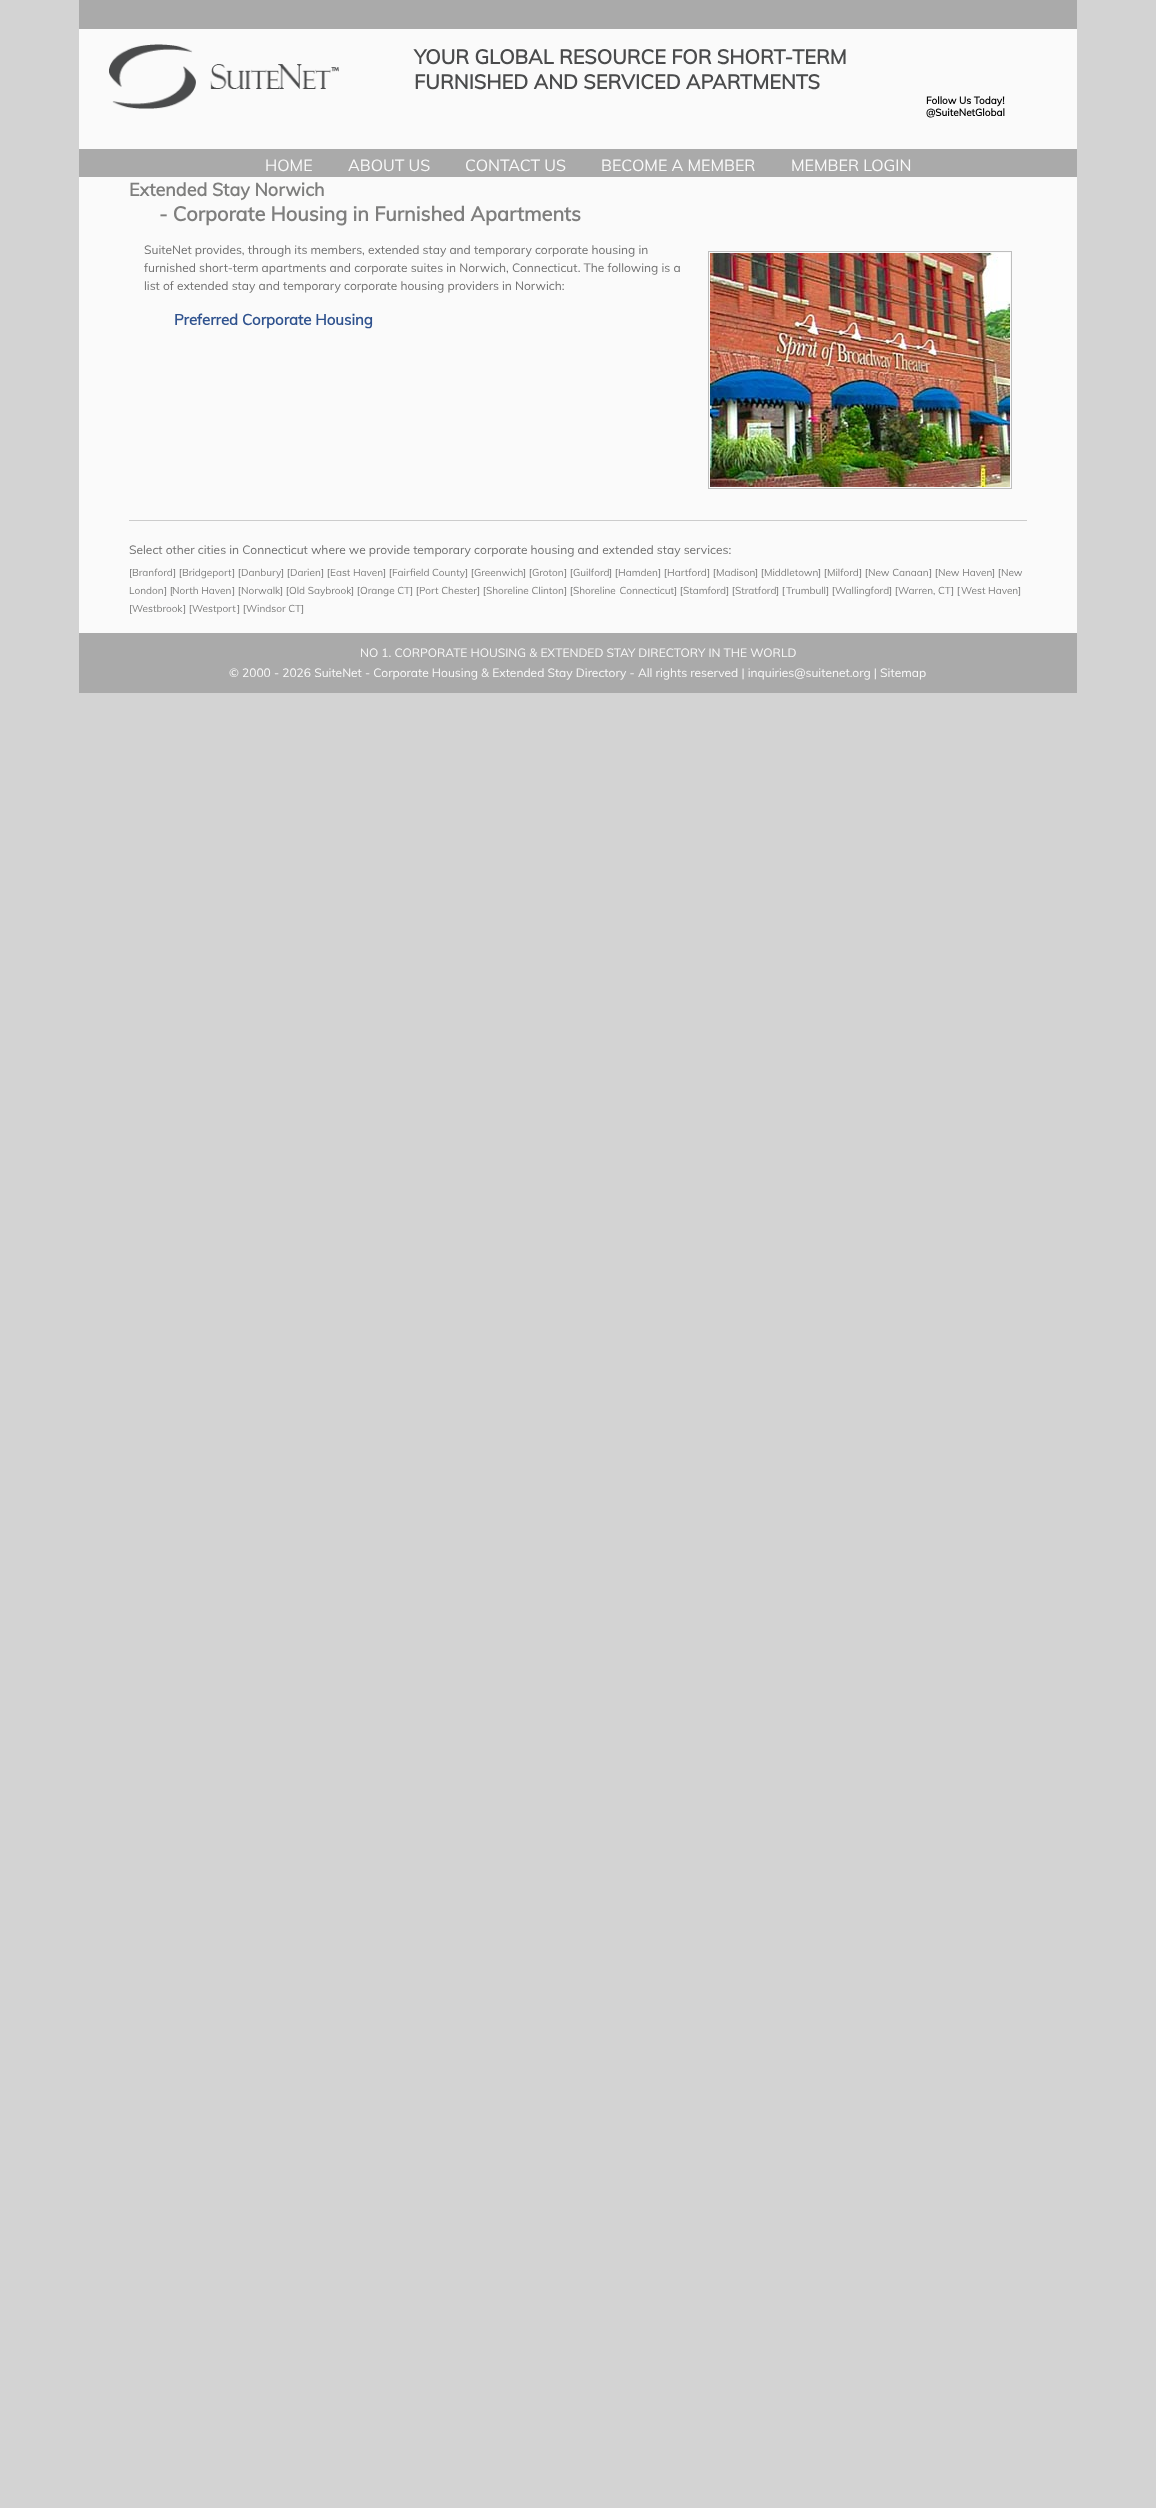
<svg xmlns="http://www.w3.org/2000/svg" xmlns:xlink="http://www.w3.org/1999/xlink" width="1156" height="2508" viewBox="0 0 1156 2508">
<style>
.cls-1{font:bold 20px Muli;fill:#4a4b4c}
.cls-2{font:bold 10px Muli;fill:#000000}
.cls-3{font:16px Muli;fill:#fafafa}
.cls-4{font:bold 18px Muli;fill:#7e7e7d}
.cls-5{font:bold 20px Muli;fill:#7e7e7d}
.cls-6{font:12px Muli;fill:#707070}
.cls-7{font:bold 15px Muli;fill:#2f528e}
.cls-8{font:10px Muli;fill:#707070}
.cls-9{font:10px Muli;fill:#7e7e7d}
.cls-10{font:12px Muli;fill:#fafafa}
</style>
<rect width="100%" height="100%" fill="#d3d3d3"/>
<rect fill="#fafafa" x="79" y="29" width="998" height="604"/>
<rect fill="#aaaaaa" x="79" y="0" width="998" height="29"/>
<image xlink:href="image0.png" x="109" y="44" width="230" height="65"/>
<rect fill="#aaaaaa" x="79" y="149" width="998" height="28"/>
<rect fill="none" stroke="#bebebe" x="708.5" y="251.5" width="303" height="237"/>
<image xlink:href="image1.png" x="710" y="253" width="300" height="234"/>
<rect fill="#cccccc" x="129" y="520" width="898" height="1"/>
<rect fill="#aaaaaa" x="79" y="633" width="998" height="60"/>
<text class="cls-1"><tspan x="414" y="64">YOUR GLOBAL RESOURCE FOR SHORT-TERM</tspan><tspan x="414" y="89">FURNISHED AND SERVICED APARTMENTS</tspan></text>
<text class="cls-2"><tspan x="926" y="104">Follow Us Today!</tspan><tspan x="926" y="116">@SuiteNetGlobal</tspan></text>
<text class="cls-3" x="265" y="171">HOME</text>
<text class="cls-3" x="348" y="171">ABOUT US</text>
<text class="cls-3" x="465" y="171">CONTACT US</text>
<text class="cls-3" x="601" y="171">BECOME A MEMBER</text>
<text class="cls-3" x="791" y="171">MEMBER LOGIN</text>
<text class="cls-4" x="129" y="196">Extended Stay Norwich</text>
<text class="cls-5" x="159" y="221">- Corporate Housing in Furnished Apartments</text>
<text class="cls-6"><tspan x="144" y="254">SuiteNet provides, through its members, extended stay and temporary corporate housing in</tspan><tspan x="144" y="272">furnished short-term apartments and corporate suites in Norwich, Connecticut. The following is a</tspan><tspan x="144" y="290">list of extended stay and temporary corporate housing providers in Norwich:</tspan></text>
<text class="cls-7" x="174" y="325">Preferred Corporate Housing</text>
<text class="cls-6" x="129" y="554">Select other cities in Connecticut where we provide temporary corporate housing and extended stay services:</text>
<text class="cls-8" x="129" y="576">[</text>
<text class="cls-9" x="132" y="576">Branford</text>
<text class="cls-8" x="173" y="576">] [</text>
<text class="cls-9" x="182" y="576">Bridgeport</text>
<text class="cls-8" x="232" y="576">] [</text>
<text class="cls-9" x="241" y="576">Danbury</text>
<text class="cls-8" x="281" y="576">] [</text>
<text class="cls-9" x="290" y="576">Darien</text>
<text class="cls-8" x="321" y="576">] [</text>
<text class="cls-9" x="330" y="576">East Haven</text>
<text class="cls-8" x="383" y="576">] [</text>
<text class="cls-9" x="392" y="576">Fairfield County</text>
<text class="cls-8" x="465" y="576">] [</text>
<text class="cls-9" x="474" y="576">Greenwich</text>
<text class="cls-8" x="523" y="576">] [</text>
<text class="cls-9" x="532" y="576">Groton</text>
<text class="cls-8" x="564" y="576">] [</text>
<text class="cls-9" x="573" y="576">Guilford</text>
<text class="cls-8" x="609" y="576">] [</text>
<text class="cls-9" x="618" y="576">Hamden</text>
<text class="cls-8" x="658" y="576">] [</text>
<text class="cls-9" x="667" y="576">Hartford</text>
<text class="cls-8" x="707" y="576">] [</text>
<text class="cls-9" x="716" y="576">Madison</text>
<text class="cls-8" x="755" y="576">] [</text>
<text class="cls-9" x="764" y="576">Middletown</text>
<text class="cls-8" x="818" y="576">] [</text>
<text class="cls-9" x="827" y="576">Milford</text>
<text class="cls-8" x="859" y="576">] [</text>
<text class="cls-9" x="868" y="576">New Canaan</text>
<text class="cls-8" x="929" y="576">] [</text>
<text class="cls-9" x="938" y="576">New Haven</text>
<text class="cls-8" x="992" y="576">] [</text>
<text class="cls-9" x="1001" y="576">New</text>
<text class="cls-9" x="129" y="594">London</text>
<text class="cls-8" x="164" y="594">] [</text>
<text class="cls-9" x="172" y="594">North Haven</text>
<text class="cls-8" x="232" y="594">] [</text>
<text class="cls-9" x="241" y="594">Norwalk</text>
<text class="cls-8" x="280" y="594">] [</text>
<text class="cls-9" x="289" y="594">Old Saybrook</text>
<text class="cls-8" x="351" y="594">] [</text>
<text class="cls-9" x="360" y="594">Orange CT</text>
<text class="cls-8" x="410" y="594">] [</text>
<text class="cls-9" x="419" y="594">Port Chester</text>
<text class="cls-8" x="477" y="594">] [</text>
<text class="cls-9" x="486" y="594">Shoreline Clinton</text>
<text class="cls-8" x="564" y="594">] [</text>
<text class="cls-9" x="573" y="594" word-spacing="1">Shoreline Connecticut</text>
<text class="cls-8" x="674" y="594">] [</text>
<text class="cls-9" x="683" y="594">Stamford</text>
<text class="cls-8" x="726" y="594">] [</text>
<text class="cls-9" x="735" y="594">Stratford</text>
<text class="cls-8" x="776" y="594">] [</text>
<text class="cls-9" x="786" y="594">Trumbull</text>
<text class="cls-8" x="826" y="594">] [</text>
<text class="cls-9" x="835" y="594">Wallingford</text>
<text class="cls-8" x="889" y="594">] [</text>
<text class="cls-9" x="898" y="594">Warren, CT</text>
<text class="cls-8" x="951" y="594">] [</text>
<text class="cls-9" x="961" y="594">West Haven</text>
<text class="cls-8" x="1018" y="594">]</text>
<text class="cls-8" x="129" y="612">[</text>
<text class="cls-9" x="132" y="612">Westbrook</text>
<text class="cls-8" x="183" y="612">] [</text>
<text class="cls-9" x="192" y="612">Westport</text>
<text class="cls-8" x="237" y="612">] [</text>
<text class="cls-9" x="246" y="612">Windsor CT</text>
<text class="cls-8" x="301" y="612">]</text>
<text class="cls-10" x="360" y="657">NO 1. CORPORATE HOUSING &amp; EXTENDED STAY DIRECTORY IN THE WORLD</text>
<text class="cls-10" x="229" y="677">© 2000 - 2026 SuiteNet - Corporate Housing &amp; Extended Stay Directory - All rights reserved | inquiries@suitenet.org | Sitemap</text>
</svg>
